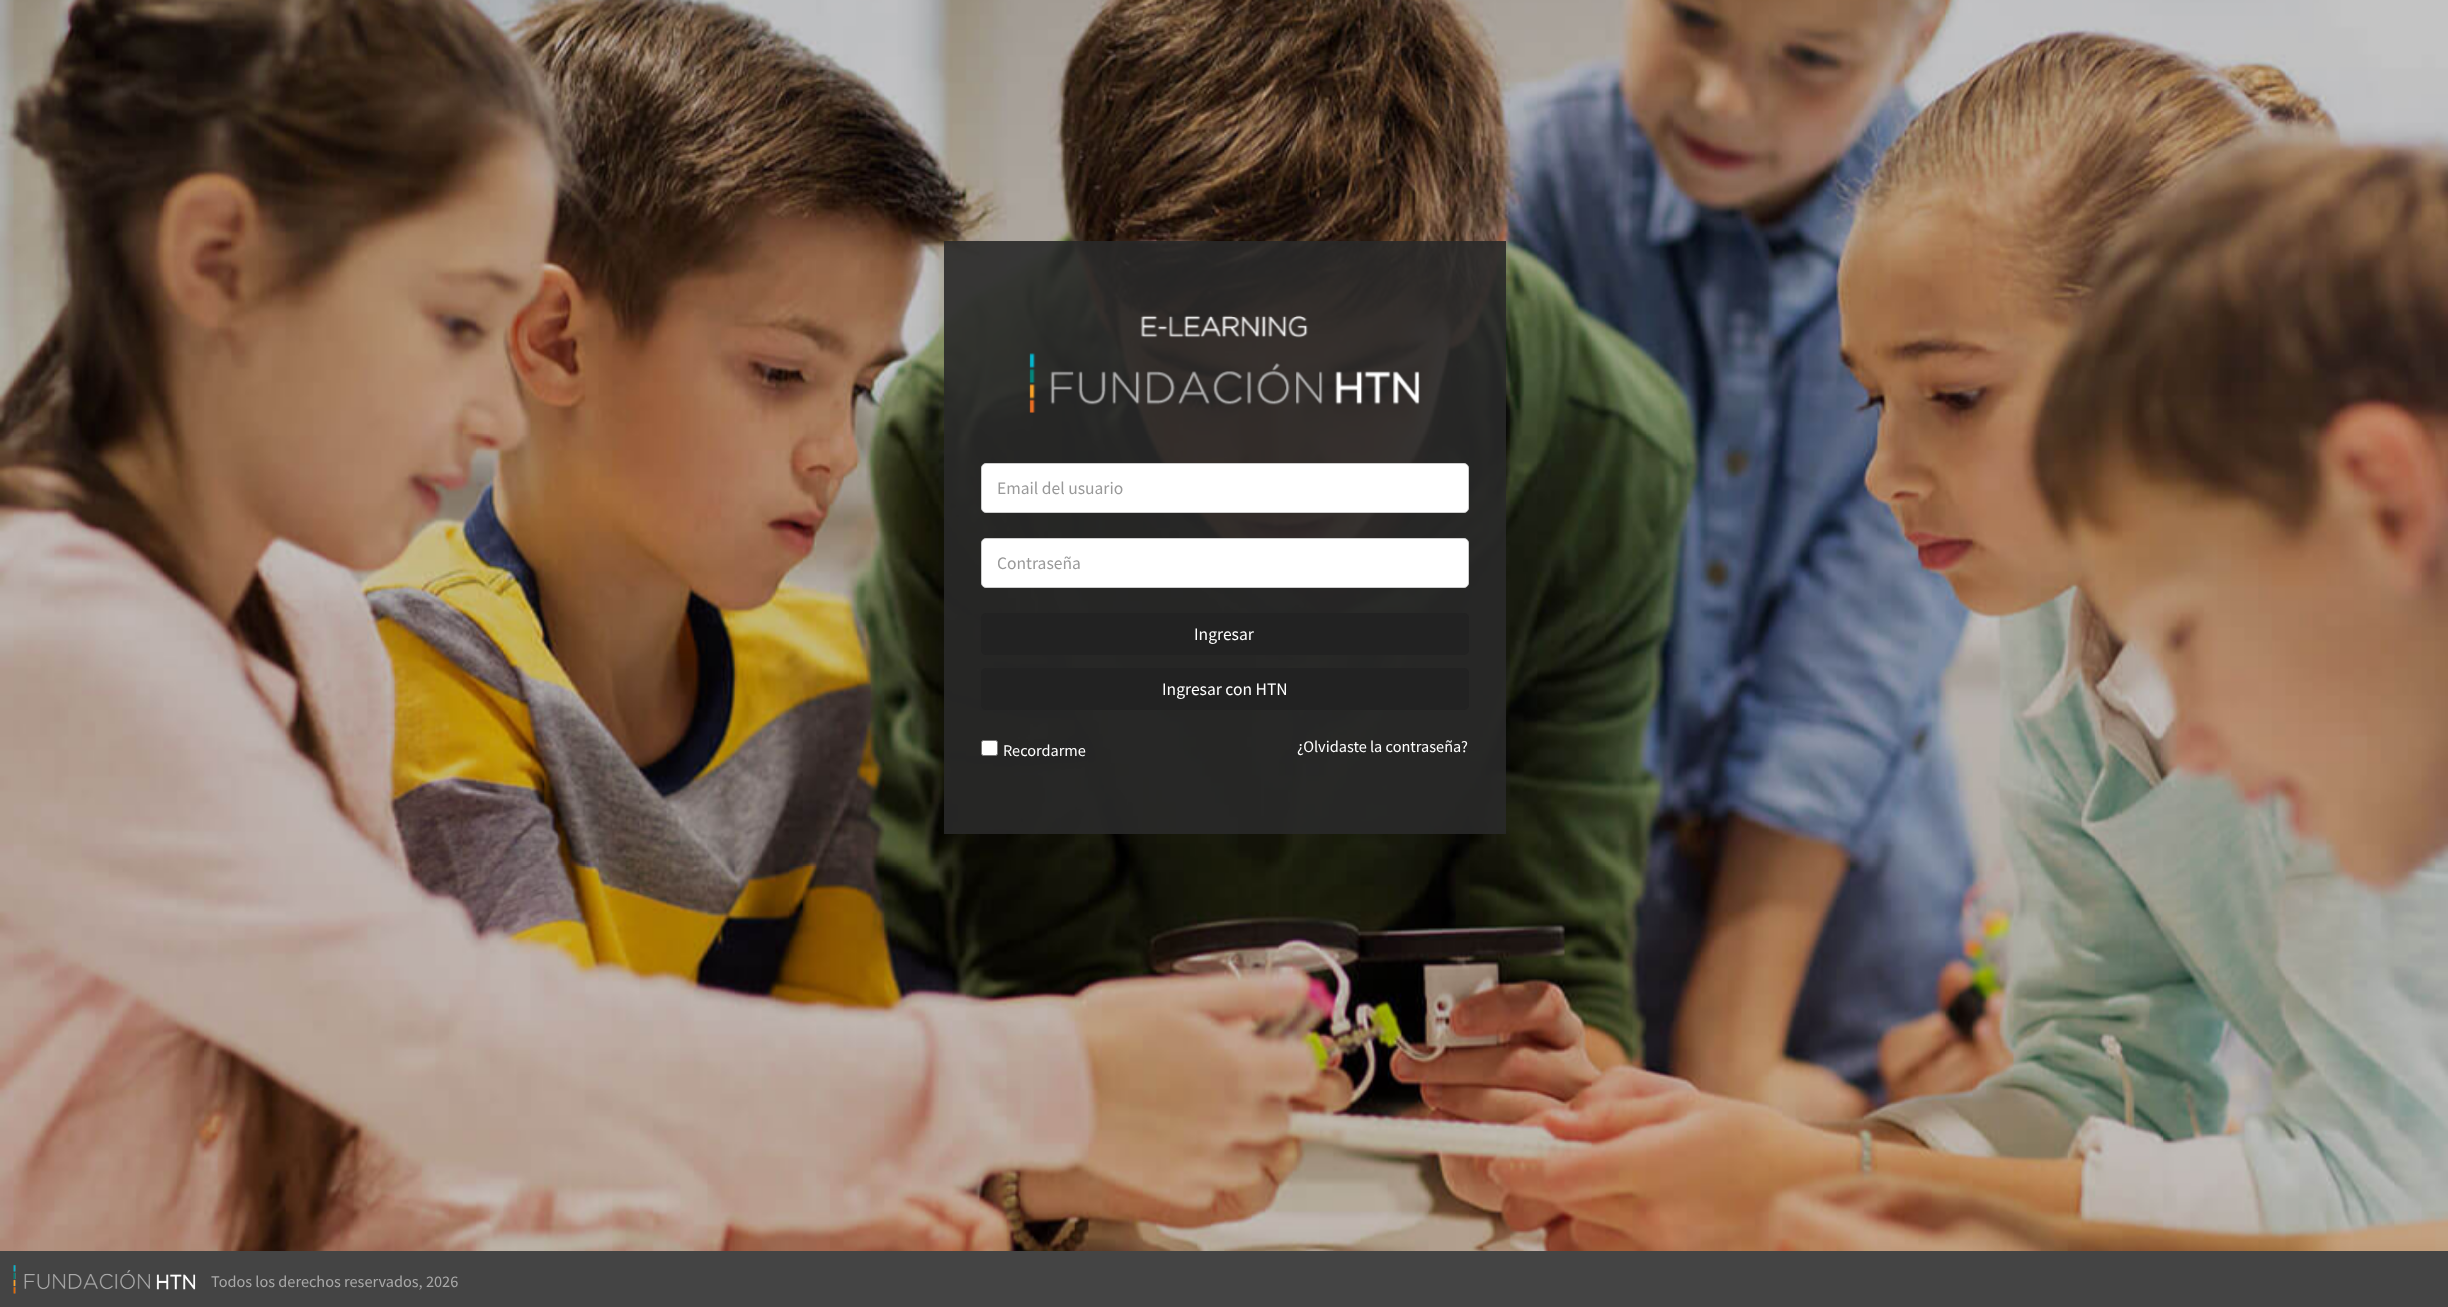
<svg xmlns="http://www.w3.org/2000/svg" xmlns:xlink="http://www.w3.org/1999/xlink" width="2448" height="1307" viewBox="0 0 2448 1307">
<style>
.cls-1{font:17.5px Source Sans Pro;fill:#999999}
.cls-2{font:17.5px Source Sans Pro;fill:#ffffff}
.cls-3{font:16.25px Source Sans Pro;fill:#ffffff}
.cls-4{font:16.25px Source Sans Pro;fill:#a9a9a9}
</style>
<defs>
<clipPath id="clip1"><rect x="998" y="551" width="455" height="23"/></clipPath>
</defs>
<rect width="100%" height="100%" fill="#ffffff"/>
<image xlink:href="image0.png" x="0" y="0" width="2448" height="1251"/>
<rect fill="#292929" fill-opacity="0.9" x="944" y="241" width="562" height="593"/>
<image xlink:href="image1.png" x="1029" y="315" width="391" height="98"/>
<rect fill="#ffffff" stroke="#cccccc" x="981.5" y="463.5" width="487" height="49" rx="4.5"/>
<rect fill="#ffffff" stroke="#cccccc" x="981.5" y="538.5" width="487" height="49" rx="4.5"/>
<rect fill="#222222" x="981" y="613" width="488" height="42" rx="5"/>
<rect fill="#222222" x="981" y="668" width="488" height="42" rx="5"/>
<rect fill="#ffffff" stroke="#767676" x="981.5" y="740.5" width="16" height="15" rx="2"/>
<rect fill="#444444" x="0" y="1251" width="2448" height="56"/>
<image xlink:href="image2.png" x="13" y="1265" width="183" height="29"/>
<text class="cls-1" x="997" y="494">Email del usuario</text>
<g clip-path="url(#clip1)">
<text class="cls-1" x="997" y="569">Contraseña</text>
</g>
<text class="cls-2" x="1194" y="640">Ingresar</text>
<text class="cls-2" x="1162" y="695">Ingresar con HTN</text>
<text class="cls-3" x="1003" y="756">Recordarme</text>
<text class="cls-3" x="1297" y="752">¿Olvidaste la contraseña?</text>
<text class="cls-4" x="211" y="1287">Todos los derechos reservados, 2026</text>
</svg>
